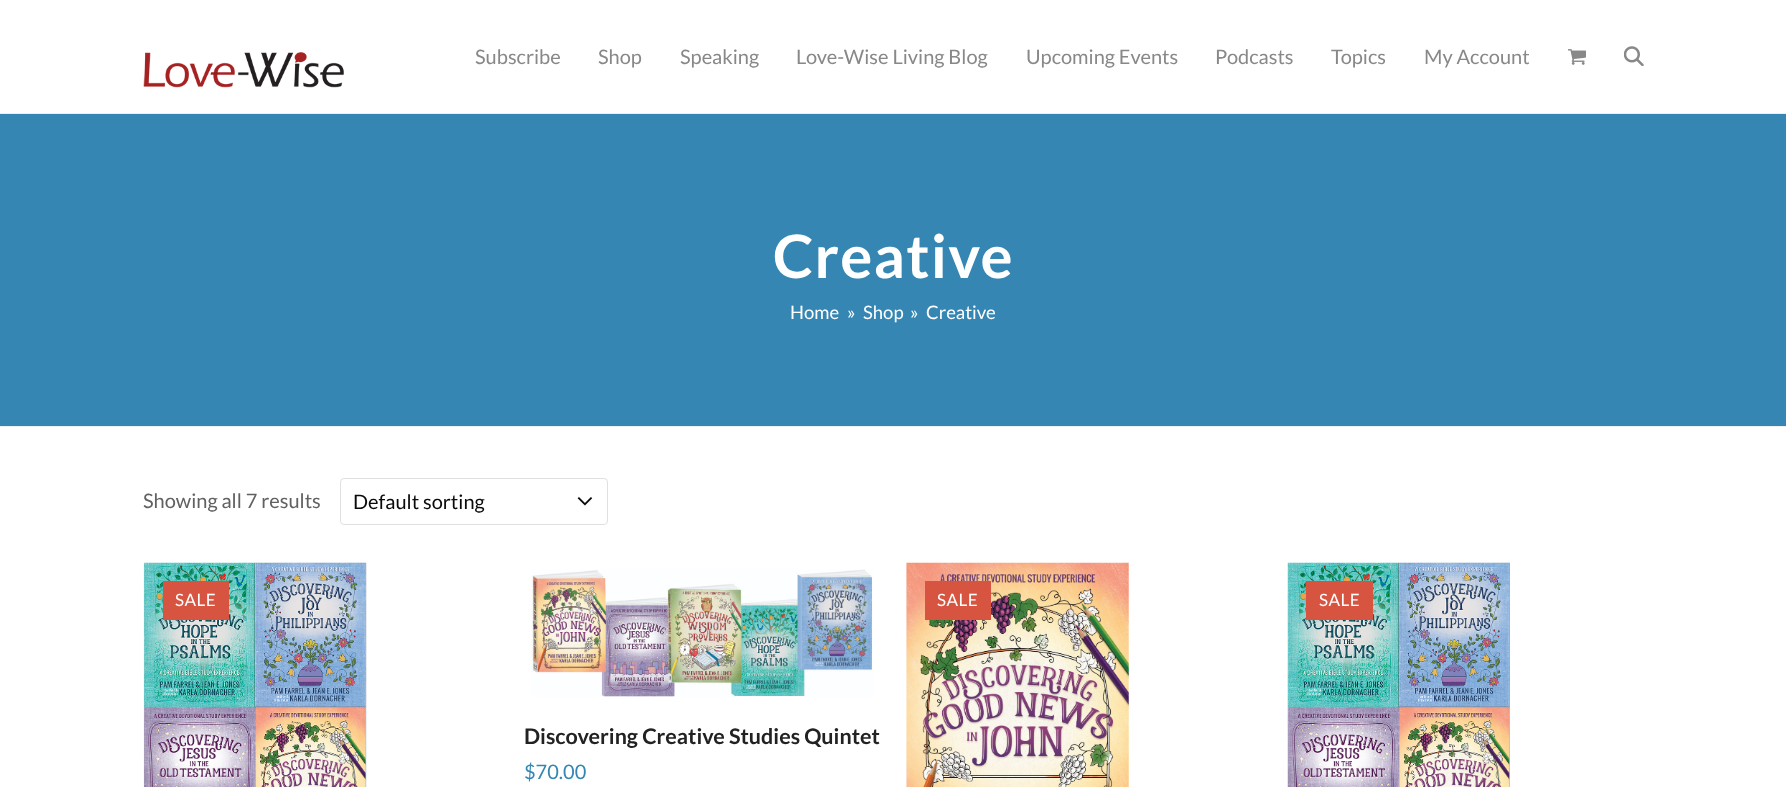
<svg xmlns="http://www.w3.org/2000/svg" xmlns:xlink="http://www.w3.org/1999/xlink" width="1786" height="787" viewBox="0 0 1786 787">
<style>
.cls-1{font:20px Lato;fill:#888888}
.cls-2{font:bold 60px Lato;letter-spacing:1.25px;fill:#ffffff}
.cls-3{font:18.5px Lato;fill:#ffffff}
.cls-4{font:20px Lato;fill:#616161}
.cls-5{font:20px Lato;fill:#0a0a0a}
.cls-6{font:17px Lato;letter-spacing:0.5px;fill:#ffffff}
.cls-7{font:bold 21.5px Lato;fill:#222222}
.cls-8{font:20px Lato;fill:#3586b2}
</style>
<rect width="100%" height="100%" fill="#ffffff"/>
<image xlink:href="image0.png" x="143" y="52" width="201" height="36"/>
<image xlink:href="image1.png" x="1568" y="49" width="18" height="16"/>
<image xlink:href="image2.png" x="1624" y="46" width="20" height="20"/>
<rect fill="#3586b2" x="0" y="114" width="1786" height="312"/>
<rect fill="#eeeeee" x="0" y="113" width="1786" height="1"/>
<rect fill="#eeeeee" x="0" y="426" width="1786" height="1"/>
<rect fill="none" stroke="#e0e0e0" x="340.5" y="478.5" width="267" height="46" rx="3.5"/>
<image xlink:href="image3.png" x="577" y="497" width="16" height="9"/>
<image xlink:href="image4.png" x="143" y="562" width="224" height="225"/>
<rect fill="#d75440" x="163" y="581" width="66" height="39"/>
<image xlink:href="image5.png" x="906" y="562" width="223" height="225"/>
<rect fill="#d75440" x="925" y="581" width="66" height="39"/>
<image xlink:href="image6.png" x="1287" y="562" width="223" height="225"/>
<rect fill="#d75440" x="1306" y="581" width="67" height="39"/>
<image xlink:href="image7.png" x="531" y="569" width="342" height="128"/>
<text class="cls-1" x="475" y="64">Subscribe</text>
<text class="cls-1" x="598" y="64">Shop</text>
<text class="cls-1" x="680" y="64">Speaking</text>
<text class="cls-1" x="796" y="64">Love-Wise Living Blog</text>
<text class="cls-1" x="1026" y="64">Upcoming Events</text>
<text class="cls-1" x="1215" y="64">Podcasts</text>
<text class="cls-1" x="1331" y="64">Topics</text>
<text class="cls-1" x="1424" y="64">My Account</text>
<text class="cls-2" x="773" y="278">Creative</text>
<text class="cls-3" x="790" y="319">Home</text>
<text class="cls-3" x="847" y="319">»</text>
<text class="cls-3" x="863" y="319">Shop</text>
<text class="cls-3" x="910" y="319">»</text>
<text class="cls-3" x="926" y="319">Creative</text>
<text class="cls-4" x="143" y="508">Showing all 7 results</text>
<text class="cls-5" x="353" y="509">Default sorting</text>
<text class="cls-6" x="175" y="606">SALE</text>
<text class="cls-6" x="937" y="606">SALE</text>
<text class="cls-6" x="1319" y="606">SALE</text>
<text class="cls-7" x="524" y="744">Discovering Creative Studies Quintet</text>
<text class="cls-8" x="524" y="779">$70.00</text>
</svg>
